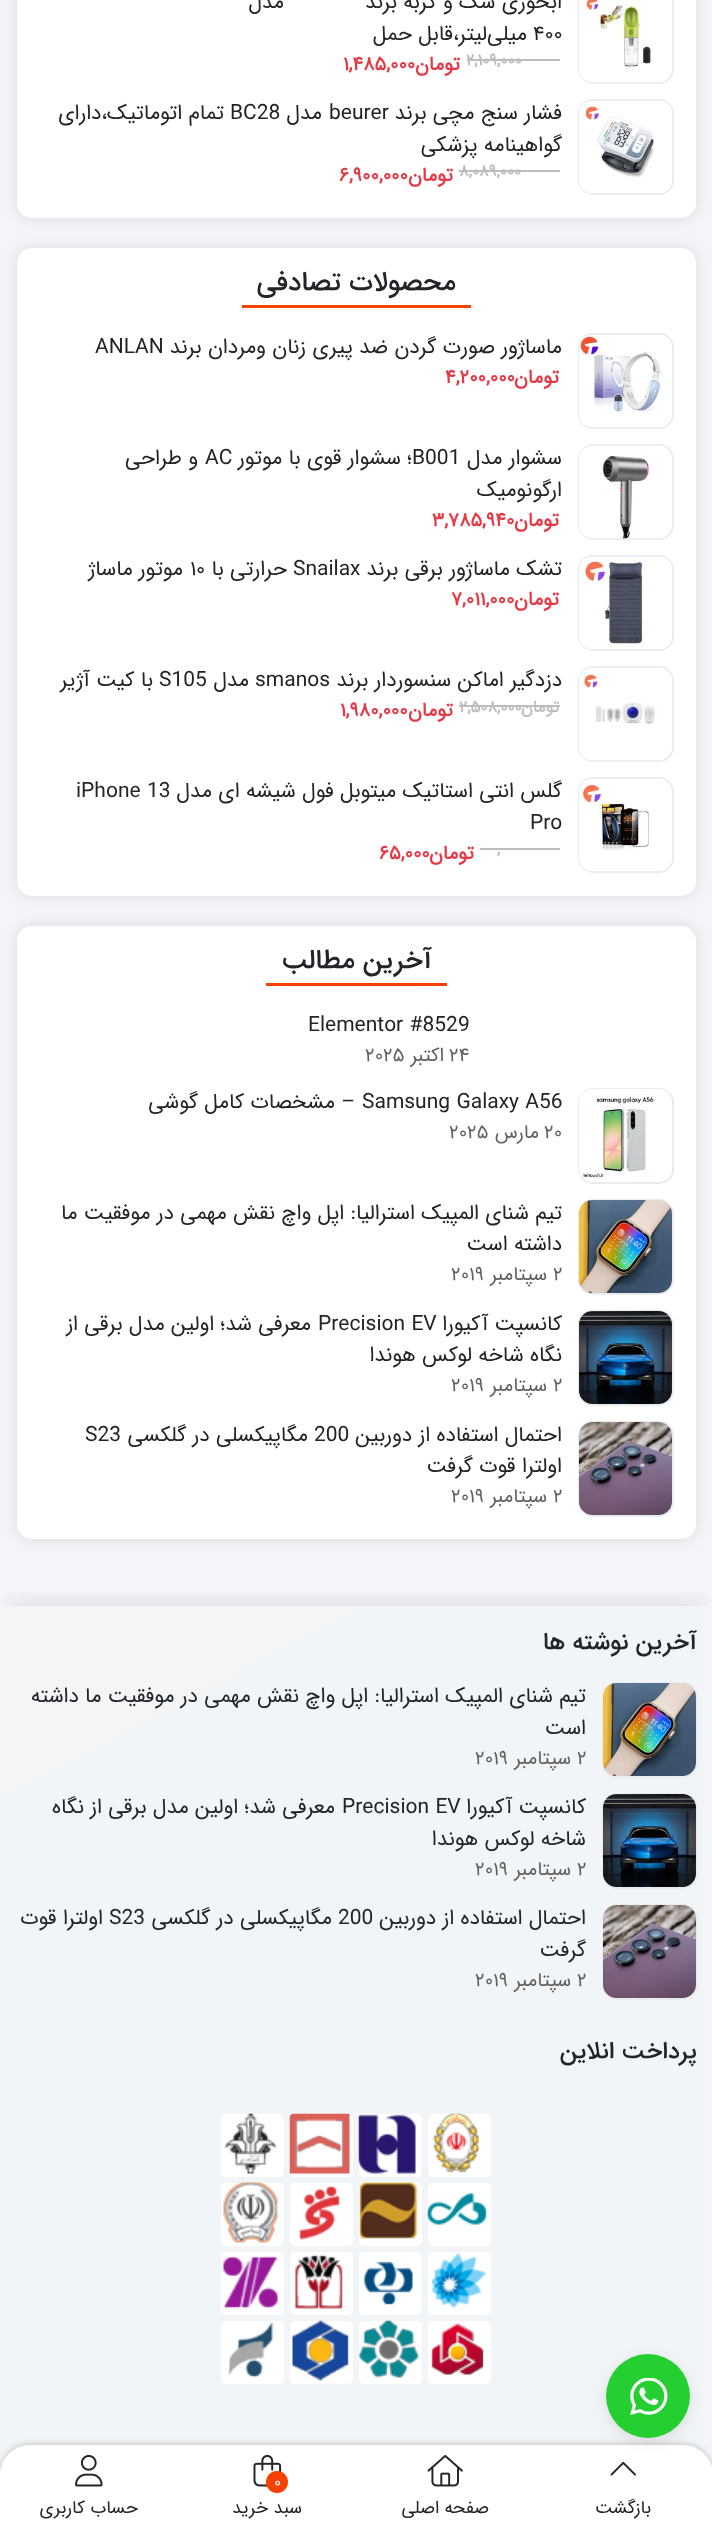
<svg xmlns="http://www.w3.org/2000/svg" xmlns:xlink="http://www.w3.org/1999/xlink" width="712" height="2527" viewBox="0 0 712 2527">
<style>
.cls-1{font:21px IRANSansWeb;direction:rtl;fill:#212529}
.cls-2{font:21px IRANSansWeb;fill:#212529}
.cls-3{font:bold 16.5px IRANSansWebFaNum;fill:#bdbdbd}
.cls-4{font:bold 19.5px IRANSansWebFaNum;direction:rtl;fill:#e63946}
.cls-5{font:bold 19.5px IRANSansWebFaNum;fill:#e63946}
.cls-6{font:500 27px IRANSansWeb;direction:rtl;fill:#212529}
.cls-7{font:bold 16.5px IRANSansWebFaNum;direction:rtl;fill:#bdbdbd}
.cls-8{font:19.5px IRANSansWebFaNum;fill:#616161}
.cls-9{font:19.5px IRANSansWebFaNum;direction:rtl;fill:#616161}
.cls-10{font:500 24px IRANSansWeb;direction:rtl;fill:#212529}
.cls-11{font:18px IRANSansWeb;direction:rtl;fill:#212529}
.cls-12{font:16.5px IRANSansWebFaNum;fill:#ffffff}
</style>
<defs>
<clipPath id="clip1"><rect x="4" y="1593" width="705" height="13"/></clipPath>
</defs>
<rect width="100%" height="100%" fill="#f4f5f9"/>
<rect fill="#000000" fill-opacity="0.1" filter="blur(7.5px)" x="17" y="-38" width="679" height="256" rx="15"/>
<rect fill="#ffffff" x="17" y="-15" width="679" height="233" rx="15"/>
<rect fill="none" stroke="#e9ecef" stroke-width="2" x="579" y="-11" width="94" height="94" rx="14"/>
<image xlink:href="image0.png" x="579" y="0" width="93" height="83"/>
<rect fill="#bdbdbd" x="522" y="59" width="38" height="2"/>
<rect fill="#bdbdbd" x="467" y="59" width="55" height="2"/>
<rect fill="none" stroke="#e9ecef" stroke-width="2" x="579" y="100" width="94" height="94" rx="14"/>
<image xlink:href="image1.png" x="579" y="100" width="93" height="94"/>
<rect fill="#bdbdbd" x="522" y="170" width="38" height="2"/>
<rect fill="#bdbdbd" x="459" y="170" width="63" height="2"/>
<rect fill="#000000" fill-opacity="0.1" filter="blur(7.5px)" x="17" y="248" width="679" height="648" rx="15"/>
<rect fill="#ffffff" x="17" y="248" width="679" height="648" rx="15"/>
<rect fill="#f74100" x="242" y="305" width="229" height="3"/>
<rect fill="none" stroke="#e9ecef" stroke-width="2" x="579" y="334" width="94" height="94" rx="14"/>
<image xlink:href="image2.png" x="579" y="334" width="93" height="94"/>
<rect fill="none" stroke="#e9ecef" stroke-width="2" x="579" y="445" width="94" height="94" rx="14"/>
<image xlink:href="image3.png" x="579" y="445" width="93" height="94"/>
<rect fill="none" stroke="#e9ecef" stroke-width="2" x="579" y="556" width="94" height="94" rx="14"/>
<image xlink:href="image4.png" x="579" y="556" width="93" height="94"/>
<rect fill="none" stroke="#e9ecef" stroke-width="2" x="579" y="667" width="94" height="94" rx="14"/>
<image xlink:href="image5.png" x="579" y="667" width="93" height="94"/>
<rect fill="#bdbdbd" x="522" y="705" width="38" height="2"/>
<rect fill="#bdbdbd" x="459" y="705" width="63" height="2"/>
<rect fill="none" stroke="#e9ecef" stroke-width="2" x="579" y="778" width="94" height="94" rx="14"/>
<image xlink:href="image6.png" x="579" y="778" width="93" height="94"/>
<rect fill="#bdbdbd" x="480" y="848" width="80" height="2"/>
<rect fill="#000000" fill-opacity="0.1" filter="blur(7.5px)" x="17" y="926" width="679" height="613" rx="15"/>
<rect fill="#ffffff" x="17" y="926" width="679" height="613" rx="15"/>
<rect fill="#f74100" x="266" y="983" width="181" height="3"/>
<rect fill="none" stroke="#e9ecef" stroke-width="2" x="579" y="1089" width="94" height="94" rx="14"/>
<image xlink:href="image7.png" x="579" y="1089" width="93" height="93"/>
<rect fill="none" stroke="#e9ecef" stroke-width="2" x="579" y="1200" width="94" height="94" rx="14"/>
<image xlink:href="image8.png" x="579" y="1200" width="93" height="93"/>
<rect fill="none" stroke="#e9ecef" stroke-width="2" x="579" y="1311" width="94" height="94" rx="14"/>
<image xlink:href="image9.png" x="579" y="1311" width="93" height="93"/>
<rect fill="none" stroke="#e9ecef" stroke-width="2" x="579" y="1422" width="94" height="94" rx="14"/>
<image xlink:href="image10.png" x="579" y="1422" width="93" height="93"/>
<g clip-path="url(#clip1)">
<rect fill="#000000" fill-opacity="0.12" filter="blur(15px)" x="9" y="1607" width="695" height="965"/>
</g>
<image xlink:href="image11.png" x="0" y="1606" width="702" height="869"/>
<rect fill="none" stroke="#e9ecef" stroke-width="2" x="603" y="1683" width="94" height="94" rx="14"/>
<image xlink:href="image12.png" x="603" y="1683" width="93" height="93"/>
<rect fill="none" stroke="#e9ecef" stroke-width="2" x="603" y="1794" width="94" height="94" rx="14"/>
<image xlink:href="image13.png" x="603" y="1794" width="93" height="93"/>
<rect fill="none" stroke="#e9ecef" stroke-width="2" x="603" y="1905" width="94" height="94" rx="14"/>
<image xlink:href="image14.png" x="603" y="1905" width="93" height="93"/>
<rect fill="#ffffff" x="428" y="2114" width="63" height="63" rx="5"/>
<image xlink:href="image15.png" x="433" y="2113" width="46" height="60"/>
<rect fill="#ffffff" x="359" y="2114" width="63" height="63" rx="5"/>
<image xlink:href="image16.png" x="358" y="2114" width="58" height="60"/>
<rect fill="#ffffff" x="290" y="2114" width="63" height="63" rx="5"/>
<image xlink:href="image17.png" x="289" y="2113" width="61" height="61"/>
<rect fill="#ffffff" x="221" y="2114" width="63" height="63" rx="5"/>
<image xlink:href="image18.png" x="224" y="2113" width="53" height="61"/>
<rect fill="#ffffff" x="428" y="2183" width="63" height="63" rx="5"/>
<image xlink:href="image19.png" x="427" y="2192" width="60" height="33"/>
<rect fill="#ffffff" x="359" y="2183" width="63" height="63" rx="5"/>
<image xlink:href="image20.png" x="359" y="2182" width="59" height="57"/>
<rect fill="#ffffff" x="290" y="2183" width="63" height="63" rx="5"/>
<image xlink:href="image21.png" x="299" y="2186" width="41" height="54"/>
<rect fill="#ffffff" x="221" y="2183" width="63" height="63" rx="5"/>
<image xlink:href="image22.png" x="223" y="2182" width="55" height="61"/>
<rect fill="#ffffff" x="428" y="2252" width="63" height="63" rx="5"/>
<image xlink:href="image23.png" x="431" y="2252" width="56" height="56"/>
<rect fill="#ffffff" x="359" y="2252" width="63" height="63" rx="5"/>
<image xlink:href="image24.png" x="364" y="2261" width="49" height="44"/>
<rect fill="#ffffff" x="290" y="2252" width="63" height="63" rx="5"/>
<image xlink:href="image25.png" x="294" y="2254" width="49" height="55"/>
<rect fill="#ffffff" x="221" y="2252" width="63" height="63" rx="5"/>
<image xlink:href="image26.png" x="222" y="2256" width="57" height="53"/>
<rect fill="#ffffff" x="428" y="2321" width="63" height="63" rx="5"/>
<image xlink:href="image27.png" x="431" y="2323" width="53" height="52"/>
<rect fill="#ffffff" x="359" y="2321" width="63" height="63" rx="5"/>
<image xlink:href="image28.png" x="358" y="2320" width="61" height="58"/>
<rect fill="#ffffff" x="290" y="2321" width="63" height="63" rx="5"/>
<image xlink:href="image29.png" x="292" y="2320" width="57" height="61"/>
<rect fill="#ffffff" x="221" y="2321" width="63" height="63" rx="5"/>
<image xlink:href="image30.png" x="228" y="2321" width="46" height="57"/>
<rect fill="#000000" fill-opacity="0.19" filter="blur(3px)" x="0" y="2444" width="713" height="82" rx="30"/>
<path fill="#ffffff" d="M30 2445H683C699.5 2445 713 2458.5 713 2475V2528H0V2475C0 2458.5 13.5 2445 30 2445Z"/>
<image xlink:href="image32.png" x="610" y="2461" width="26" height="15"/>
<rect fill="#000000" fill-opacity="0.1" filter="blur(7px)" x="606" y="2358" width="84" height="84" rx="42"/>
<circle fill="#26cf31" cx="648" cy="2396" r="42"/>
<image xlink:href="image31.png" x="630" y="2378" width="38" height="37"/>
<image xlink:href="image33.png" x="427" y="2455" width="36" height="32"/>
<image xlink:href="image34.png" x="253" y="2454" width="29" height="33"/>
<circle fill="#f74100" cx="277" cy="2482" r="11"/>
<image xlink:href="image35.png" x="75" y="2454" width="28" height="33"/>
<text class="cls-1" x="562" y="8">ابخوری سگ و گربه برند</text>
<text class="cls-1" x="284" y="8">مدل</text>
<text class="cls-2" x="533" y="40">۴۰۰</text>
<text class="cls-1" x="527" y="40">میلی‌لیتر،قابل حمل</text>
<text class="cls-3" x="466" y="65">2,109,000</text>
<text class="cls-4" x="460" y="70">تومان</text>
<text class="cls-5" x="343" y="70">1,485,000</text>
<text class="cls-1" x="562" y="119">فشار سنج مچی برند</text>
<text class="cls-2" x="329" y="119">beurer</text>
<text class="cls-1" x="322" y="119">مدل</text>
<text class="cls-2" x="230" y="119">BC28</text>
<text class="cls-1" x="224" y="119">تمام اتوماتیک،دارای</text>
<text class="cls-1" x="562" y="151">گواهینامه پزشکی</text>
<text class="cls-3" x="459" y="176">8,089,000</text>
<text class="cls-4" x="453" y="181">تومان</text>
<text class="cls-5" x="339" y="181">6,900,000</text>
<text class="cls-6" x="456" y="290">محصولات تصادفی</text>
<text class="cls-1" x="562" y="353">ماساژور صورت گردن ضد پیری زنان ومردان برند</text>
<text class="cls-2" x="95" y="353">ANLAN</text>
<text class="cls-4" x="559" y="383">تومان</text>
<text class="cls-5" x="445" y="383">4,200,000</text>
<text class="cls-1" x="562" y="464">سشوار مدل</text>
<text class="cls-2" x="412" y="464">B001</text>
<text class="cls-1" x="412" y="464">؛ سشوار قوی با موتور</text>
<text class="cls-2" x="205" y="464">AC</text>
<text class="cls-1" x="198" y="464">و طراحی</text>
<text class="cls-1" x="562" y="496">ارگونومیک</text>
<text class="cls-4" x="559" y="526">تومان</text>
<text class="cls-5" x="432" y="526">3,785,940</text>
<text class="cls-1" x="562" y="575">تشک ماساژور برقی برند</text>
<text class="cls-2" x="293" y="575">Snailax</text>
<text class="cls-1" x="287" y="575">حرارتی با</text>
<text class="cls-2" x="190" y="575">۱۰</text>
<text class="cls-1" x="183" y="575">موتور ماساژ</text>
<text class="cls-4" x="559" y="605">تومان</text>
<text class="cls-5" x="451" y="605">7,011,000</text>
<text class="cls-1" x="562" y="686">دزدگیر اماکن سنسوردار برند</text>
<text class="cls-2" x="255" y="686">smanos</text>
<text class="cls-1" x="249" y="686">مدل</text>
<text class="cls-2" x="159" y="686">S105</text>
<text class="cls-1" x="153" y="686">با کیت آژیر</text>
<text class="cls-7" x="559" y="712">تومان</text>
<text class="cls-3" x="459" y="712">2,508,000</text>
<text class="cls-4" x="453" y="716">تومان</text>
<text class="cls-5" x="340" y="716">1,980,000</text>
<text class="cls-1" x="562" y="797">گلس انتی استاتیک میتوبل فول شیشه ای مدل</text>
<text class="cls-2" x="76" y="797">iPhone 13</text>
<text class="cls-2" x="530" y="829">Pro</text>
<text class="cls-3" x="497" y="854">,</text>
<text class="cls-4" x="474" y="859">تومان</text>
<text class="cls-5" x="379" y="859">65,000</text>
<text class="cls-6" x="432" y="968">آخرین مطالب</text>
<text class="cls-2" x="308" y="1031">Elementor #8529</text>
<text class="cls-8" x="449" y="1061">24</text>
<text class="cls-9" x="444" y="1061">اکتبر</text>
<text class="cls-8" x="365" y="1061">2025</text>
<text class="cls-2" x="362" y="1108">Samsung Galaxy A56</text>
<text class="cls-1" x="355" y="1108">– مشخصات کامل گوشی</text>
<text class="cls-8" x="544" y="1138">20</text>
<text class="cls-9" x="539" y="1138">مارس</text>
<text class="cls-8" x="449" y="1138">2025</text>
<text class="cls-1"><tspan x="562" y="1219">تیم شنای المپیک استرالیا: اپل واچ نقش مهمی در موفقیت ما</tspan><tspan x="562" y="1250">داشته است</tspan></text>
<text class="cls-8" x="553" y="1280">2</text>
<text class="cls-9" x="547" y="1280">سپتامبر</text>
<text class="cls-8" x="451" y="1280">2019</text>
<text class="cls-1" x="562" y="1330">کانسپت آکیورا</text>
<text class="cls-2" x="318" y="1330">Precision EV</text>
<text class="cls-1" x="311" y="1330">معرفی شد؛ اولین مدل برقی از</text>
<text class="cls-1" x="562" y="1361">نگاه شاخه لوکس هوندا</text>
<text class="cls-8" x="553" y="1391">2</text>
<text class="cls-9" x="547" y="1391">سپتامبر</text>
<text class="cls-8" x="451" y="1391">2019</text>
<text class="cls-1" x="562" y="1441">احتمال استفاده از دوربین</text>
<text class="cls-2" x="314" y="1441">200</text>
<text class="cls-1" x="308" y="1441">مگاپیکسلی در گلکسی</text>
<text class="cls-2" x="85" y="1441">S23</text>
<text class="cls-1" x="562" y="1472">اولترا قوت گرفت</text>
<text class="cls-8" x="553" y="1502">2</text>
<text class="cls-9" x="547" y="1502">سپتامبر</text>
<text class="cls-8" x="451" y="1502">2019</text>
<text class="cls-10" x="697" y="1649">آخرین نوشته ها</text>
<text class="cls-1"><tspan x="586" y="1702">تیم شنای المپیک استرالیا: اپل واچ نقش مهمی در موفقیت ما داشته</tspan><tspan x="586" y="1734">است</tspan></text>
<text class="cls-8" x="577" y="1764">2</text>
<text class="cls-9" x="571" y="1764">سپتامبر</text>
<text class="cls-8" x="475" y="1764">2019</text>
<text class="cls-1" x="586" y="1813">کانسپت آکیورا</text>
<text class="cls-2" x="342" y="1813">Precision EV</text>
<text class="cls-1" x="335" y="1813">معرفی شد؛ اولین مدل برقی از نگاه</text>
<text class="cls-1" x="586" y="1845">شاخه لوکس هوندا</text>
<text class="cls-8" x="577" y="1875">2</text>
<text class="cls-9" x="571" y="1875">سپتامبر</text>
<text class="cls-8" x="475" y="1875">2019</text>
<text class="cls-1" x="586" y="1924">احتمال استفاده از دوربین</text>
<text class="cls-2" x="338" y="1924">200</text>
<text class="cls-1" x="332" y="1924">مگاپیکسلی در گلکسی</text>
<text class="cls-2" x="109" y="1924">S23</text>
<text class="cls-1" x="103" y="1924">اولترا قوت</text>
<text class="cls-1" x="586" y="1956">گرفت</text>
<text class="cls-8" x="577" y="1986">2</text>
<text class="cls-9" x="571" y="1986">سپتامبر</text>
<text class="cls-8" x="475" y="1986">2019</text>
<text class="cls-10" x="697" y="2058">پرداخت انلاین</text>
<text class="cls-11" x="651" y="2513">بازگشت</text>
<text class="cls-11" x="489" y="2513">صفحه اصلی</text>
<text class="cls-12" x="274" y="2487">0</text>
<text class="cls-11" x="302" y="2513">سبد خرید</text>
<text class="cls-11" x="138" y="2513">حساب کاربری</text>
</svg>
